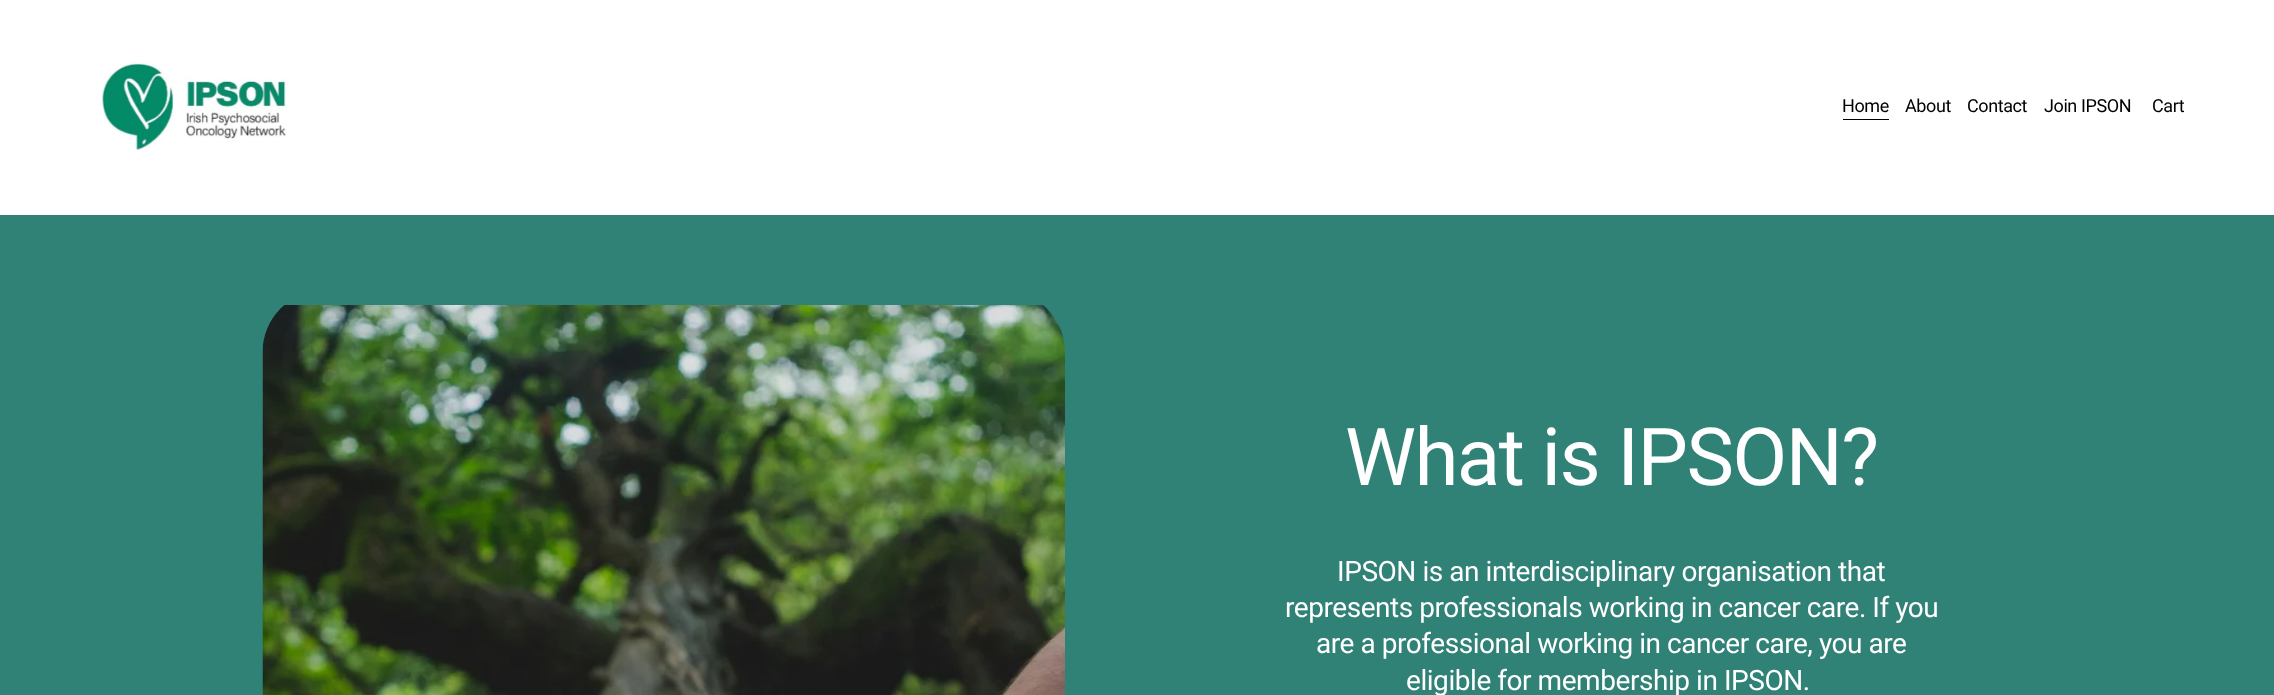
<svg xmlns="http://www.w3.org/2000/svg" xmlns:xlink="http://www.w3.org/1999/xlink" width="2274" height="695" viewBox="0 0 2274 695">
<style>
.cls-1{font:18px Roboto;letter-spacing:-0.4px;fill:#000000}
.cls-2{font:80px Roboto;letter-spacing:-1.6px;fill:#ffffff}
.cls-3{font:28px Roboto;letter-spacing:-0.45px;fill:#ffffff}
</style>
<rect width="100%" height="100%" fill="#308176"/>
<rect fill="#ffffff" x="0" y="0" width="2274" height="215"/>
<image xlink:href="image0.png" x="101" y="61" width="185" height="90"/>
<rect fill="#000000" x="1843" y="119" width="46" height="1"/>
<image xlink:href="image1.png" x="262" y="305" width="803" height="390"/>
<text class="cls-1" x="1842" y="112">Home</text>
<text class="cls-1" x="1905" y="112">About</text>
<text class="cls-1" x="1967" y="112">Contact</text>
<text class="cls-1" x="2044" y="112">Join IPSON</text>
<text class="cls-1" x="2152" y="112">Cart</text>
<text class="cls-2" x="1345" y="485">What is IPSON?</text>
<text class="cls-3" x="1337" y="581">IPSON is an interdisciplinary organisation that</text>
<text class="cls-3" x="1285" y="617">represents professionals working in cancer care. If you</text>
<text class="cls-3" x="1316" y="653">are a professional working in cancer care, you are</text>
<text class="cls-3" x="1406" y="690">eligible for membership in IPSON.</text>
</svg>
